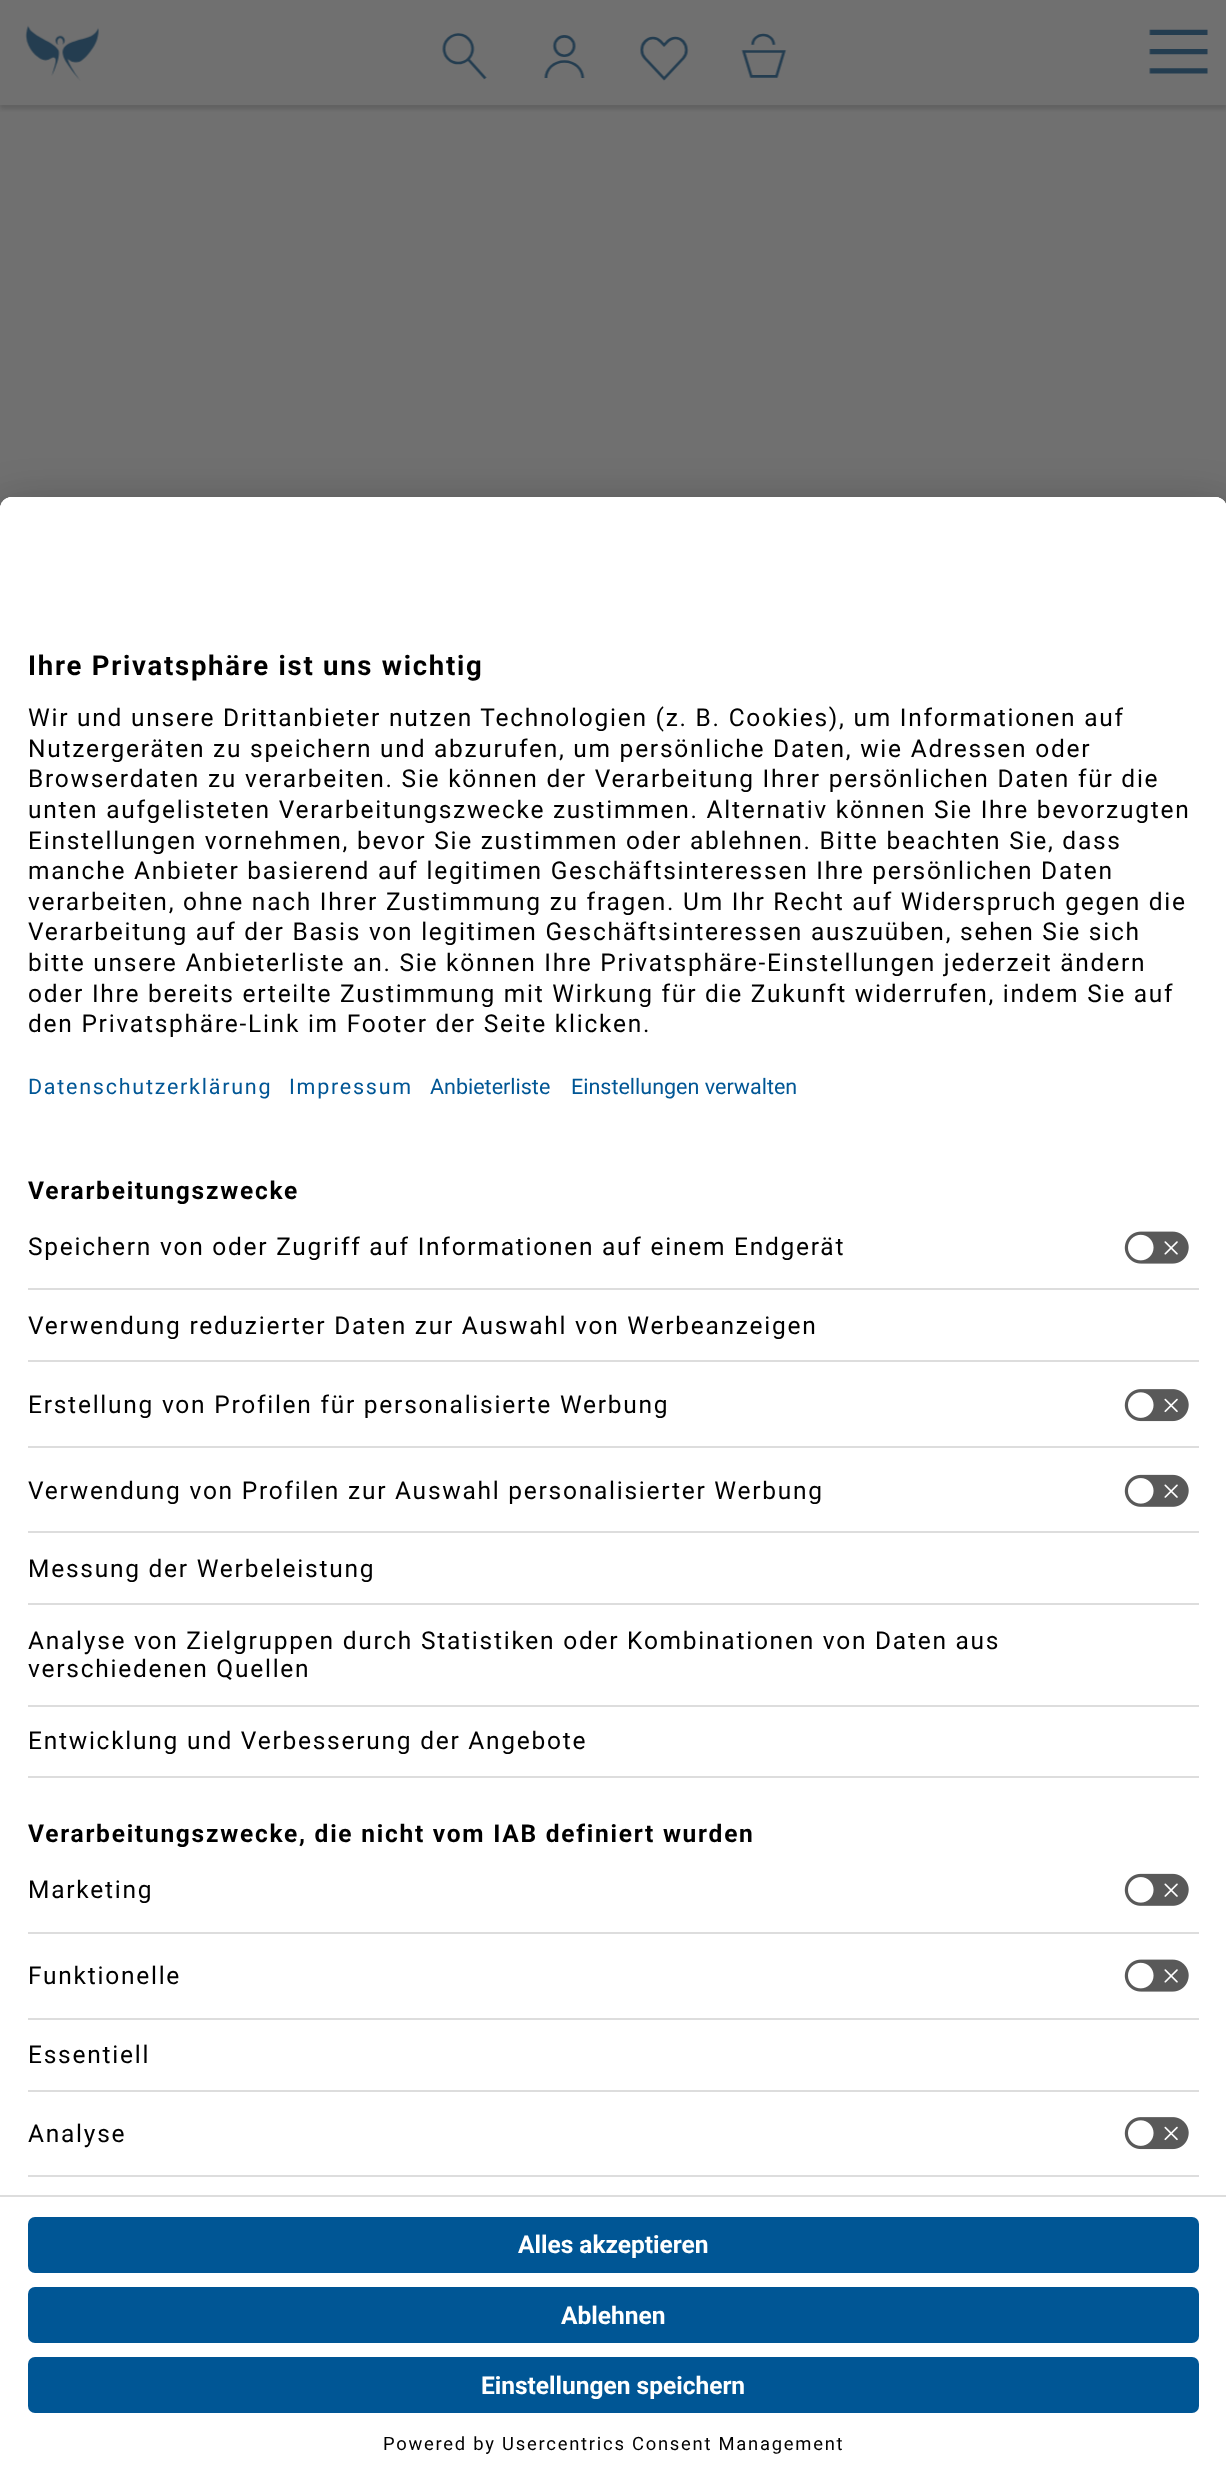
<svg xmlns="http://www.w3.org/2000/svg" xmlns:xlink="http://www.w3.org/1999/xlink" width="1226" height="2482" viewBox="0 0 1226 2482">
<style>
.cls-1{font:bold 27.5px Roboto;letter-spacing:1.75px;fill:#000000}
.cls-2{font:24.5px Roboto;letter-spacing:1.75px;fill:#000000}
.cls-3{font:21.5px Roboto;letter-spacing:1.75px;fill:#005695}
.cls-4{font:21.5px Roboto;fill:#005695}
.cls-5{font:bold 24.5px Roboto;letter-spacing:1.75px;fill:#000000}
.cls-6{font:bold 24.5px Roboto;fill:#ffffff}
.cls-7{font:18.4px Roboto;letter-spacing:1.75px;fill:#000000}
</style>
<defs>
<clipPath id="clip1"><rect x="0" y="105" width="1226" height="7"/></clipPath>
</defs>
<rect width="100%" height="100%" fill="#707070"/>
<g clip-path="url(#clip1)">
<rect fill="#242424" fill-opacity="0.2" filter="blur(2px)" x="0" y="4" width="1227" height="105"/>
</g>
<image xlink:href="image0.png" x="25" y="25" width="74" height="56"/>
<image xlink:href="image1.png" x="442" y="33" width="45" height="47"/>
<image xlink:href="image2.png" x="544" y="35" width="41" height="43"/>
<image xlink:href="image3.png" x="640" y="36" width="49" height="45"/>
<image xlink:href="image4.png" x="741" y="33" width="46" height="45"/>
<image xlink:href="image5.png" x="1149" y="29" width="59" height="45"/>
<rect fill="#000000" fill-opacity="0.3" filter="blur(24.5px)" x="0" y="532" width="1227" height="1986" rx="12"/>
<rect fill="#000000" fill-opacity="0.22" filter="blur(23px)" x="0" y="506" width="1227" height="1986" rx="12"/>
<path fill="#ffffff" d="M12 497H1215C1221.5 497 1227 502.5 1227 509V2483H0V509C0 502.5 5.5 497 12 497Z"/>
<path fill="#ffffff" d="M12 497H1215C1221.5 497 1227 502.5 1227 509V2195H0V509C0 502.5 5.5 497 12 497Z"/>
<path fill="#ffffff" d="M12 497H1215C1221.5 497 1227 502.5 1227 509V1155H0V509C0 502.5 5.5 497 12 497Z"/>
<rect fill="#dddddd" x="28" y="1288" width="1171" height="2"/>
<image xlink:href="image6.png" x="1124" y="1231" width="65" height="33"/>
<rect fill="#dddddd" x="28" y="1360" width="1171" height="2"/>
<rect fill="#dddddd" x="28" y="1446" width="1171" height="2"/>
<image xlink:href="image7.png" x="1124" y="1389" width="65" height="33"/>
<rect fill="#dddddd" x="28" y="1531" width="1171" height="2"/>
<image xlink:href="image8.png" x="1124" y="1474" width="65" height="33"/>
<rect fill="#dddddd" x="28" y="1603" width="1171" height="2"/>
<rect fill="#dddddd" x="28" y="1705" width="1171" height="2"/>
<rect fill="#dddddd" x="28" y="1776" width="1171" height="2"/>
<rect fill="#dddddd" x="28" y="1932" width="1171" height="2"/>
<image xlink:href="image8.png" x="1124" y="1873" width="65" height="33"/>
<rect fill="#dddddd" x="28" y="2018" width="1171" height="2"/>
<image xlink:href="image6.png" x="1124" y="1959" width="65" height="33"/>
<rect fill="#dddddd" x="28" y="2090" width="1171" height="2"/>
<rect fill="#dddddd" x="28" y="2175" width="1171" height="2"/>
<image xlink:href="image7.png" x="1124" y="2117" width="65" height="33"/>
<rect fill="#dddddd" x="0" y="2195" width="1226" height="2"/>
<rect fill="#005695" x="28" y="2217" width="1171" height="56" rx="7"/>
<rect fill="#005695" x="28" y="2287" width="1171" height="56" rx="7"/>
<rect fill="#005695" x="28" y="2357" width="1171" height="56" rx="7"/>
<text class="cls-1" x="28" y="675">Ihre Privatsphäre ist uns wichtig</text>
<text class="cls-2"><tspan x="28" y="726">Wir und unsere Drittanbieter nutzen Technologien (z. B. Cookies), um Informationen auf</tspan><tspan x="28" y="757">Nutzergeräten zu speichern und abzurufen, um persönliche Daten, wie Adressen oder</tspan><tspan x="28" y="787">Browserdaten zu verarbeiten. Sie können der Verarbeitung Ihrer persönlichen Daten für die</tspan><tspan x="28" y="818">unten aufgelisteten Verarbeitungszwecke zustimmen. Alternativ können Sie Ihre bevorzugten</tspan><tspan x="28" y="849">Einstellungen vornehmen, bevor Sie zustimmen oder ablehnen. Bitte beachten Sie, dass</tspan><tspan x="28" y="879">manche Anbieter basierend auf legitimen Geschäftsinteressen Ihre persönlichen Daten</tspan><tspan x="28" y="910">verarbeiten, ohne nach Ihrer Zustimmung zu fragen. Um Ihr Recht auf Widerspruch gegen die</tspan><tspan x="28" y="940">Verarbeitung auf der Basis von legitimen Geschäftsinteressen auszuüben, sehen Sie sich</tspan><tspan x="28" y="971">bitte unsere Anbieterliste an. Sie können Ihre Privatsphäre-Einstellungen jederzeit ändern</tspan><tspan x="28" y="1002">oder Ihre bereits erteilte Zustimmung mit Wirkung für die Zukunft widerrufen, indem Sie auf</tspan><tspan x="28" y="1032">den Privatsphäre-Link im Footer der Seite klicken.</tspan></text>
<text class="cls-3" x="28" y="1094">Datenschutzerklärung</text>
<text class="cls-3" x="289" y="1094">Impressum</text>
<text class="cls-4" x="430" y="1094">Anbieterliste</text>
<text class="cls-4" x="571" y="1094">Einstellungen verwalten</text>
<text class="cls-5" x="28" y="1199">Verarbeitungszwecke</text>
<text class="cls-2" x="28" y="1255">Speichern von oder Zugriff auf Informationen auf einem Endgerät</text>
<text class="cls-2" x="28" y="1334">Verwendung reduzierter Daten zur Auswahl von Werbeanzeigen</text>
<text class="cls-2" x="28" y="1413">Erstellung von Profilen für personalisierte Werbung</text>
<text class="cls-2" x="28" y="1499">Verwendung von Profilen zur Auswahl personalisierter Werbung</text>
<text class="cls-2" x="28" y="1577">Messung der Werbeleistung</text>
<text class="cls-2"><tspan x="28" y="1649">Analyse von Zielgruppen durch Statistiken oder Kombinationen von Daten aus</tspan><tspan x="28" y="1677">verschiedenen Quellen</tspan></text>
<text class="cls-2" x="28" y="1749">Entwicklung und Verbesserung der Angebote</text>
<text class="cls-5" x="28" y="1842">Verarbeitungszwecke, die nicht vom IAB definiert wurden</text>
<text class="cls-2" x="28" y="1898">Marketing</text>
<text class="cls-2" x="28" y="1984">Funktionelle</text>
<text class="cls-2" x="28" y="2063">Essentiell</text>
<text class="cls-2" x="28" y="2142">Analyse</text>
<text class="cls-6" x="518" y="2253">Alles akzeptieren</text>
<text class="cls-6" x="561" y="2324">Ablehnen</text>
<text class="cls-6" x="481" y="2394">Einstellungen speichern</text>
<text class="cls-7" x="383" y="2450">Powered by Usercentrics Consent Management</text>
</svg>
